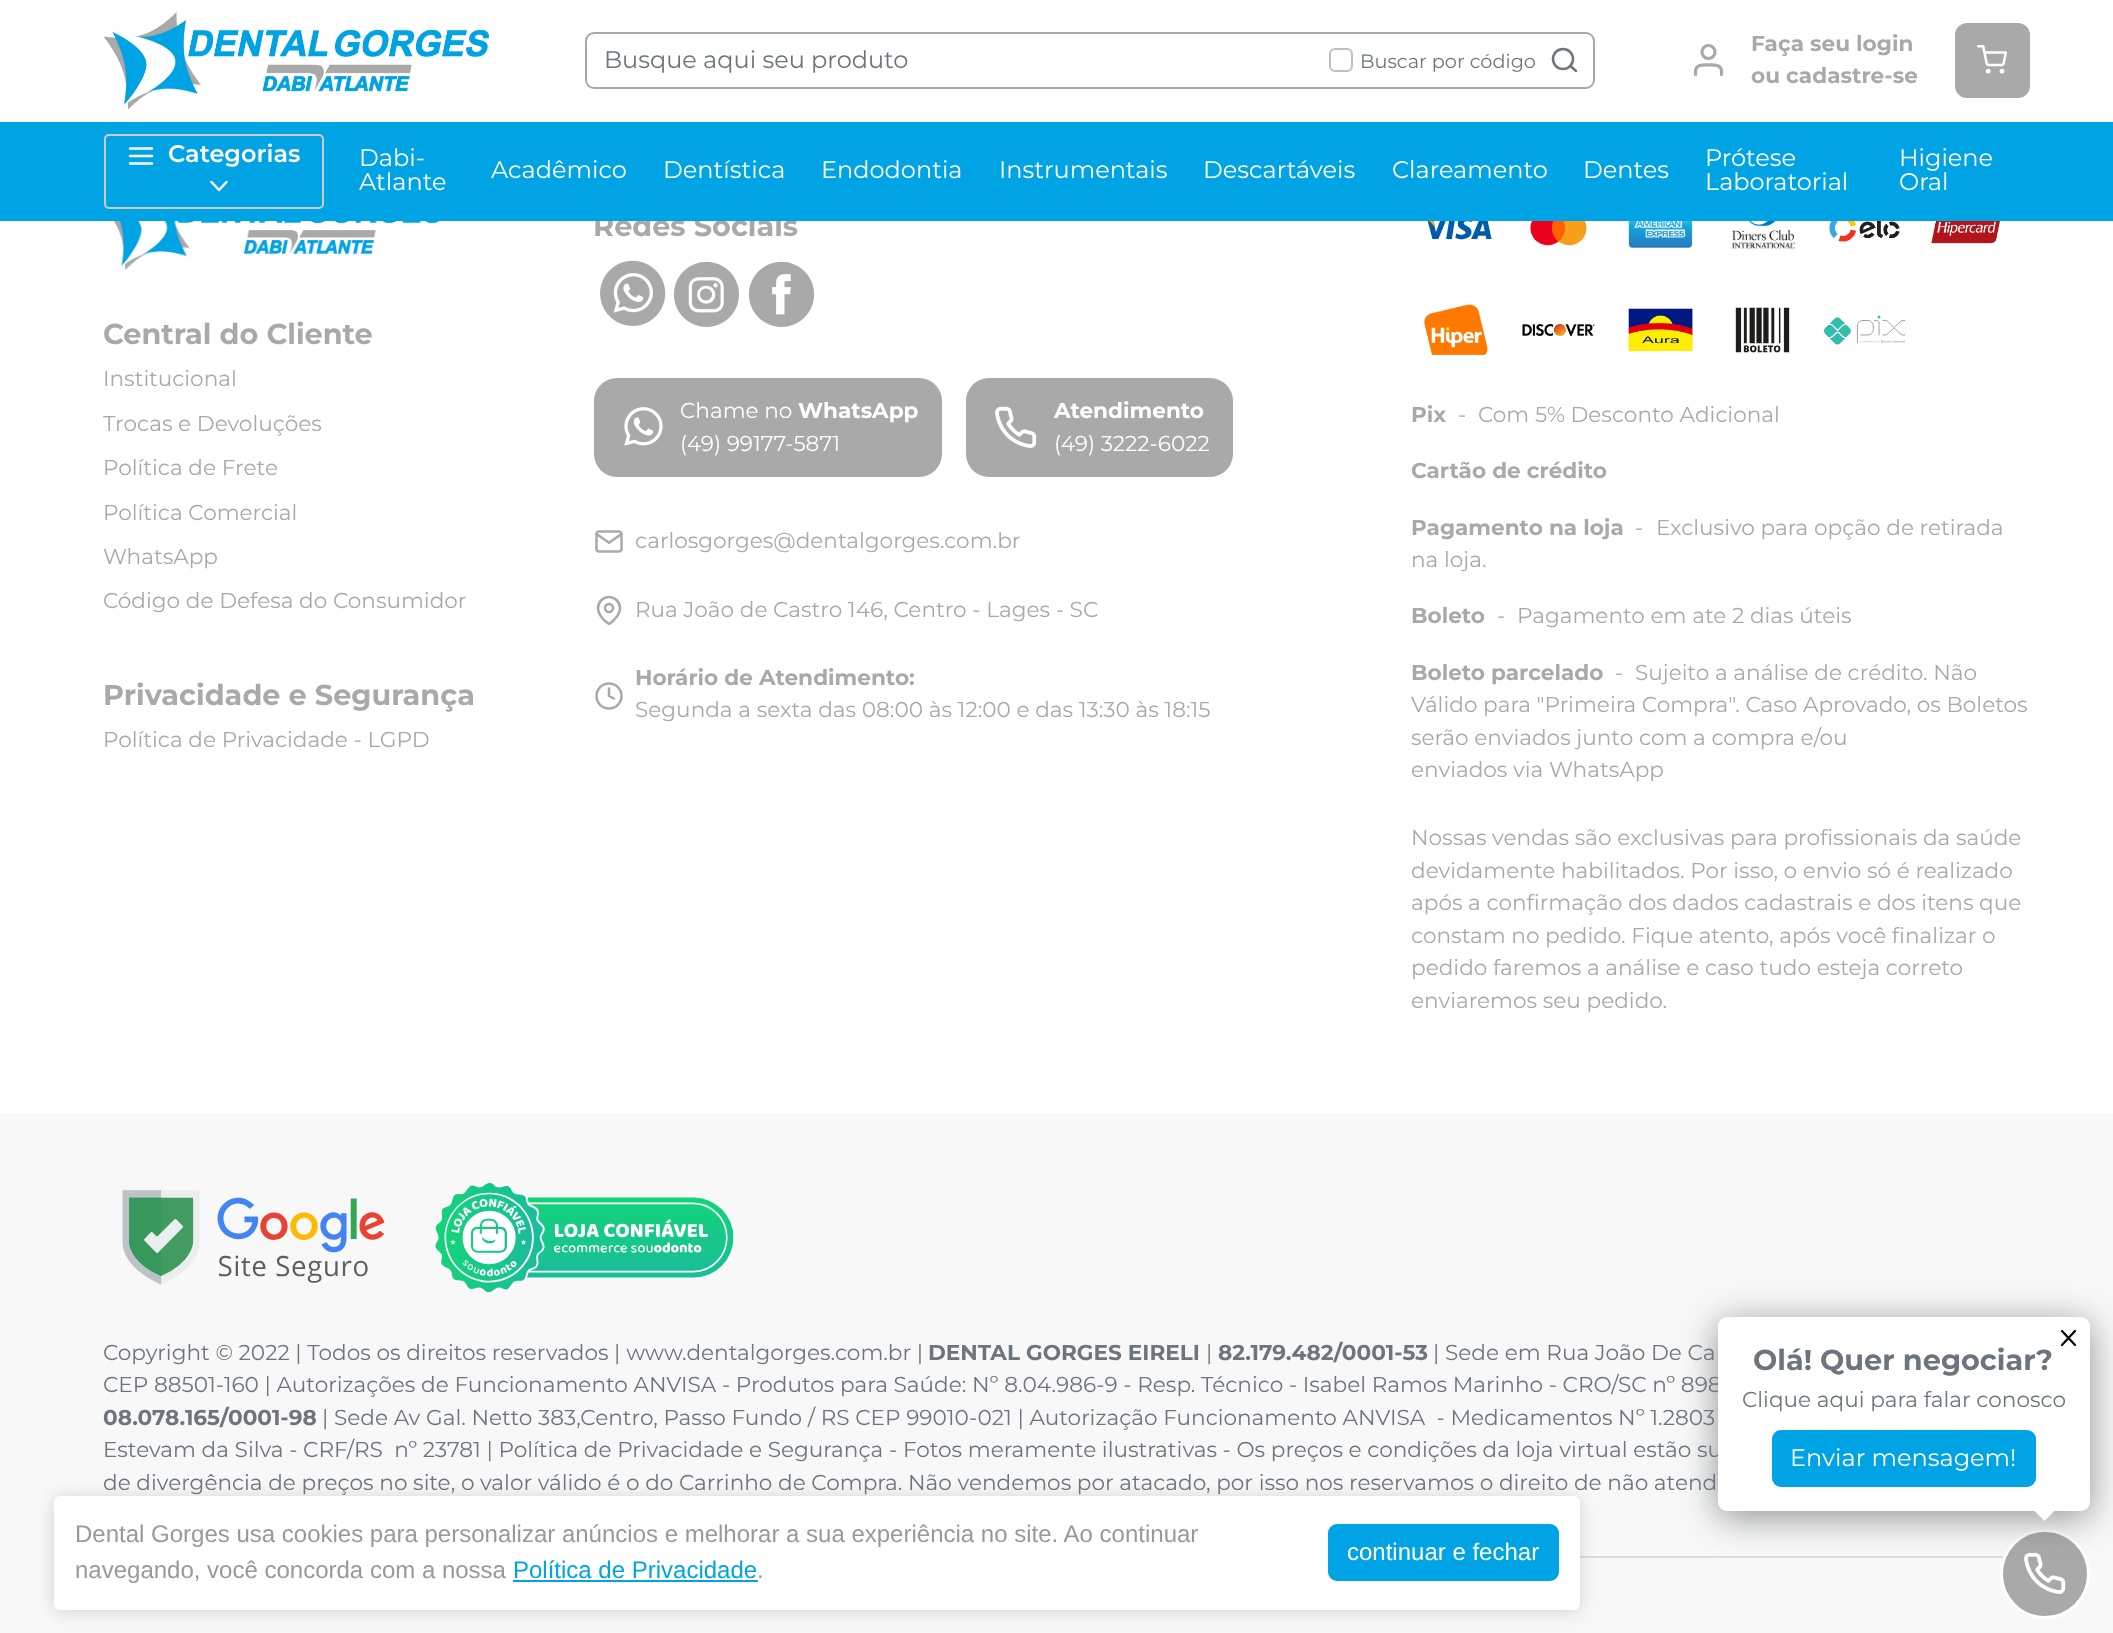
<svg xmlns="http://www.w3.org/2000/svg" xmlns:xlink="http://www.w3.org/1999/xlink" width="2113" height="1633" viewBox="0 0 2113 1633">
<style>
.cls-1{font:24px Montserrat;fill:#6c757d}
.cls-2{font:19.25px Montserrat;fill:#6c757d}
.cls-3{font:bold 21.6px Montserrat;fill:#a9a9a9}
.cls-4{font:bold 28.75px Montserrat;fill:#a9a9a9}
.cls-5{font:21.6px Montserrat;fill:#a9a9a9}
.cls-6{font:24px Montserrat;fill:#ffffff}
.cls-7{font:600 24px Montserrat;fill:#ffffff}
.cls-8{font:21.6px Montserrat;fill:#ffffff}
.cls-9{font:bold 21.6px Montserrat;fill:#ffffff}
.cls-10{font:21.6px Montserrat;fill:#6c757d}
.cls-11{font:bold 21.6px Montserrat;fill:#6c757d}
.cls-12{font:bold 28.75px Montserrat;fill:#6c757d}
.cls-13{font:24px Liberation Sans;fill:#999999}
.cls-14{font:24px Liberation Sans;fill:#00a3e4}
.cls-15{font:24px Liberation Sans;fill:#ffffff}
</style>
<defs>
<clipPath id="clip1"><rect x="594" y="596" width="30" height="30"/></clipPath>
</defs>
<rect width="100%" height="100%" fill="#f8f8f8"/>
<rect fill="#ffffff" x="0" y="0" width="2113" height="122"/>
<image xlink:href="image0.png" x="103" y="12" width="386" height="98"/>
<rect fill="none" stroke="#a9a9a9" stroke-width="2" x="586" y="33" width="1008" height="55" rx="8"/>
<circle fill="none" stroke="#6c757d" stroke-width="2.5" cx="1563" cy="59" r="10"/>
<path fill="none" stroke="#6c757d" stroke-width="2.5" stroke-linecap="round" stroke-linejoin="round" d="M1576 71L1570.5 66"/>
<rect fill="none" stroke="#bfbfbf" stroke-width="2" x="1330" y="49" width="22" height="22" rx="5"/>
<path fill="none" stroke="#a9a9a9" stroke-width="3.2" stroke-linecap="round" stroke-linejoin="round" d="M1721.5 74.5V70C1720 64 1713 65 1708.5 65C1704 65 1697 64 1695.5 70V74.5"/>
<circle fill="none" stroke="#a9a9a9" stroke-width="3.2" cx="1708.5" cy="52" r="6.5"/>
<rect fill="#a9a9a9" stroke="#a9a9a9" stroke-width="2" x="1956" y="24" width="73" height="73" rx="11"/>
<image xlink:href="image1.png" x="1977" y="45" width="30" height="29"/>
<rect fill="#ffffff" x="0" y="221" width="2113" height="892"/>
<image xlink:href="image2.png" x="103" y="221" width="341" height="49"/>
<image xlink:href="image3.png" x="600" y="260" width="66" height="66"/>
<image xlink:href="image4.png" x="673" y="261" width="66" height="66"/>
<image xlink:href="image5.png" x="748" y="261" width="67" height="66"/>
<rect fill="#a9a9a9" x="594" y="378" width="348" height="99" rx="23"/>
<image xlink:href="image6.png" x="624" y="407" width="39" height="39"/>
<rect fill="#a9a9a9" x="966" y="378" width="267" height="99" rx="23"/>
<image xlink:href="image7.png" x="995" y="406" width="42" height="42"/>
<image xlink:href="image8.png" x="595" y="530" width="28" height="23"/>
<g clip-path="url(#clip1)">
<path fill="none" stroke="#a9a9a9" stroke-width="2.5" stroke-linecap="round" stroke-linejoin="round" d="M620 608C620 617 609 624 609 624C609 624 598 617 598 608C598 602 603 597 609 597C615 597 620 602 620 608Z"/>
</g>
<circle fill="none" stroke="#a9a9a9" stroke-width="2.5" cx="609" cy="608" r="4"/>
<circle fill="none" stroke="#a9a9a9" stroke-width="2.5" cx="609" cy="696" r="12.5"/>
<path fill="none" stroke="#a9a9a9" stroke-width="2.5" stroke-linecap="round" stroke-linejoin="round" d="M609 688.5V696L614 698.5"/>
<image xlink:href="image9.png" x="1421" y="221" width="71" height="19"/>
<image xlink:href="image10.png" x="1530" y="221" width="57" height="25"/>
<image xlink:href="image11.png" x="1628" y="221" width="65" height="27"/>
<image xlink:href="image12.png" x="1732" y="221" width="63" height="28"/>
<image xlink:href="image13.png" x="1829" y="221" width="71" height="21"/>
<image xlink:href="image14.png" x="1931" y="221" width="71" height="23"/>
<image xlink:href="image15.png" x="1424" y="304" width="64" height="51"/>
<image xlink:href="image16.png" x="1522" y="324" width="73" height="12"/>
<image xlink:href="image17.png" x="1628" y="308" width="65" height="44"/>
<image xlink:href="image18.png" x="1735" y="307" width="55" height="46"/>
<image xlink:href="image19.png" x="1824" y="315" width="82" height="30"/>
<image xlink:href="image20.png" x="122" y="1190" width="263" height="95"/>
<image xlink:href="image21.png" x="434" y="1181" width="300" height="113"/>
<rect fill="#dddddd" x="1580" y="1556" width="424" height="2"/>
<circle fill="#a9a9a9" stroke="#ffffff" stroke-width="3" cx="2045" cy="1574" r="43.5"/>
<image xlink:href="image7.png" x="2024" y="1552" width="42" height="42"/>
<rect fill="#22292f" fill-opacity="0.5" filter="blur(18px)" x="1718" y="1323" width="372" height="194" rx="9"/>
<rect fill="#000000" fill-opacity="0.05" filter="blur(11px)" x="54" y="1499" width="1526" height="114" rx="6"/>
<rect fill="#000000" fill-opacity="0.1" filter="blur(7.5px)" x="54" y="1497" width="1526" height="114" rx="6"/>
<rect fill="#ffffff" x="54" y="1496" width="1526" height="114" rx="6"/>
<rect fill="#00a3e4" x="513" y="1580" width="245" height="2"/>
<rect fill="#00a3e4" stroke="#00a3e4" stroke-width="2" x="1329" y="1525" width="229" height="55" rx="8"/>
<text class="cls-1" x="604" y="68">Busque aqui seu produto</text>
<text class="cls-2" x="1360" y="68">Buscar por código</text>
<text class="cls-3"><tspan x="1751" y="51">Faça seu login</tspan><tspan x="1751" y="83">ou cadastre-se</tspan></text>
<text class="cls-4" x="103" y="344">Central do Cliente</text>
<text class="cls-5" x="103" y="386">Institucional</text>
<text class="cls-5" x="103" y="431">Trocas e Devoluções</text>
<text class="cls-5" x="103" y="475">Política de Frete</text>
<text class="cls-5" x="103" y="520">Política Comercial</text>
<text class="cls-5" x="103" y="564">WhatsApp</text>
<text class="cls-5" x="103" y="608">Código de Defesa do Consumidor</text>
<text class="cls-4" x="103" y="705">Privacidade e Segurança</text>
<text class="cls-5" x="103" y="747">Política de Privacidade - LGPD</text>
<text class="cls-4" x="593" y="236">Redes Sociais</text>
<rect fill="#00a3e4" x="0" y="122" width="2113" height="99"/>
<rect fill="none" stroke="#cccccc" stroke-width="2" x="105" y="135" width="218" height="73" rx="4"/>
<path fill="none" stroke="#ffffff" stroke-width="2.5" stroke-linecap="round" stroke-linejoin="round" d="M211.5 182L219 190L226.5 182"/>
<path fill="none" stroke="#ffffff" stroke-width="2.5" stroke-linecap="round" stroke-linejoin="round" d="M130 156H152M130 148.5H152M130 163.5H152"/>
<text class="cls-6" x="1899" y="190">Oral</text>
<text class="cls-6" x="1899" y="166">Higiene</text>
<text class="cls-6" x="1705" y="190">Laboratorial</text>
<text class="cls-6" x="1705" y="166">Prótese</text>
<text class="cls-6" x="1583" y="178">Dentes</text>
<text class="cls-6" x="1392" y="178">Clareamento</text>
<text class="cls-6" x="1203" y="178">Descartáveis</text>
<text class="cls-6" x="999" y="178">Instrumentais</text>
<text class="cls-6" x="821" y="178">Endodontia</text>
<text class="cls-6" x="663" y="178">Dentística</text>
<text class="cls-6" x="491" y="178">Acadêmico</text>
<text class="cls-6" x="359" y="190">Atlante</text>
<text class="cls-6" x="359" y="166">Dabi-</text>
<text class="cls-7" x="168" y="162">Categorias</text>
<text class="cls-8" x="680" y="418">Chame no</text>
<text class="cls-9" x="798" y="418">WhatsApp</text>
<text class="cls-8" x="680" y="451">(49) 99177-5871</text>
<text class="cls-9" x="1054" y="418">Atendimento</text>
<text class="cls-8" x="1054" y="451">(49) 3222-6022</text>
<text class="cls-5" x="635" y="548">carlosgorges@dentalgorges.com.br</text>
<text class="cls-5" x="635" y="617">Rua João de Castro 146, Centro - Lages - SC</text>
<text class="cls-3" x="635" y="685">Horário de Atendimento:</text>
<text class="cls-5" x="635" y="717">Segunda a sexta das 08:00 às 12:00 e das 13:30 às 18:15</text>
<text class="cls-3" x="1411" y="422">Pix</text>
<text class="cls-5" x="1458" y="422">-</text>
<text class="cls-5" x="1478" y="422">Com 5% Desconto Adicional</text>
<text class="cls-3" x="1411" y="478">Cartão de crédito</text>
<text class="cls-3" x="1411" y="535">Pagamento na loja</text>
<text class="cls-5" x="1635" y="535">-</text>
<text class="cls-5" x="1656" y="535">Exclusivo para opção de retirada</text>
<text class="cls-5" x="1411" y="567">na loja.</text>
<text class="cls-3" x="1411" y="623">Boleto</text>
<text class="cls-5" x="1497" y="623">-</text>
<text class="cls-5" x="1517" y="623">Pagamento em ate 2 dias úteis</text>
<text class="cls-3" x="1411" y="680">Boleto parcelado</text>
<text class="cls-5" x="1615" y="680">-</text>
<text class="cls-5" x="1635" y="680">Sujeito a análise de crédito. Não</text>
<text class="cls-5"><tspan x="1411" y="712">Válido para "Primeira Compra". Caso Aprovado, os Boletos</tspan><tspan x="1411" y="745">serão enviados junto com a compra e/ou</tspan><tspan x="1411" y="777">enviados via WhatsApp</tspan></text>
<text class="cls-5"><tspan x="1411" y="845">Nossas vendas são exclusivas para profissionais da saúde</tspan><tspan x="1411" y="878">devidamente habilitados. Por isso, o envio só é realizado</tspan><tspan x="1411" y="910">após a confirmação dos dados cadastrais e dos itens que</tspan><tspan x="1411" y="943">constam no pedido. Fique atento, após você finalizar o</tspan><tspan x="1411" y="975">pedido faremos a análise e caso tudo esteja correto</tspan><tspan x="1411" y="1008">enviaremos seu pedido.</tspan></text>
<text class="cls-10" x="103" y="1360">Copyright © 2022 | Todos os direitos reservados | www.dentalgorges.com.br |</text>
<text class="cls-11" x="928" y="1360">DENTAL GORGES EIRELI</text>
<text class="cls-10" x="1206" y="1360">|</text>
<text class="cls-11" x="1218" y="1360">82.179.482/0001-53</text>
<text class="cls-10" x="1433" y="1360">| Sede em Rua João De Ca</text>
<text class="cls-10" x="103" y="1392">CEP 88501-160 | Autorizações de Funcionamento ANVISA - Produtos para Saúde: Nº 8.04.986-9 - Resp. Técnico - Isabel Ramos Marinho - CRO/SC nº 898</text>
<text class="cls-11" x="103" y="1425">08.078.165/0001-98</text>
<text class="cls-10" xml:space="preserve" x="322" y="1425">| Sede Av Gal. Netto 383,Centro, Passo Fundo / RS CEP 99010-021 | Autorização Funcionamento ANVISA  - Medicamentos Nº 1.2803</text>
<text class="cls-10" xml:space="preserve"><tspan x="103" y="1457">Estevam da Silva - CRF/RS  nº 23781 | Política de Privacidade e Segurança - Fotos meramente ilustrativas - Os preços e condições da loja virtual estão su</tspan><tspan x="103" y="1490">de divergência de preços no site, o valor válido é o do Carrinho de Compra. Não vendemos por atacado, por isso nos reservamos o direito de não atend</tspan></text>
<rect fill="#ffffff" x="1718" y="1317" width="372" height="194" rx="9"/>
<path fill="none" stroke="#000000" stroke-width="2.2" stroke-linecap="round" stroke-linejoin="round" d="M2075 1331L2062 1345M2062 1331L2075 1345"/>
<text class="cls-12" x="1753" y="1370">Olá! Quer negociar?</text>
<text class="cls-10" x="1742" y="1407">Clique aqui para falar conosco</text>
<rect fill="#00a3e4" stroke="#00a3e4" stroke-width="2" x="1773" y="1431" width="262" height="55" rx="8"/>
<text class="cls-6" x="1790" y="1466">Enviar mensagem!</text>
<path fill="#ffffff" d="M2055 1510.5L2044.5 1521L2034 1510.5L2044.5 1500Z"/>
<text class="cls-13"><tspan x="75" y="1542">Dental Gorges usa cookies para personalizar anúncios e melhorar a sua experiência no site. Ao continuar</tspan><tspan x="75" y="1578">navegando, você concorda com a nossa</tspan></text>
<text class="cls-14" x="513" y="1578">Política de Privacidade</text>
<text class="cls-13" x="757" y="1578">.</text>
<text class="cls-15" x="1347" y="1560">continuar e fechar</text>
</svg>
